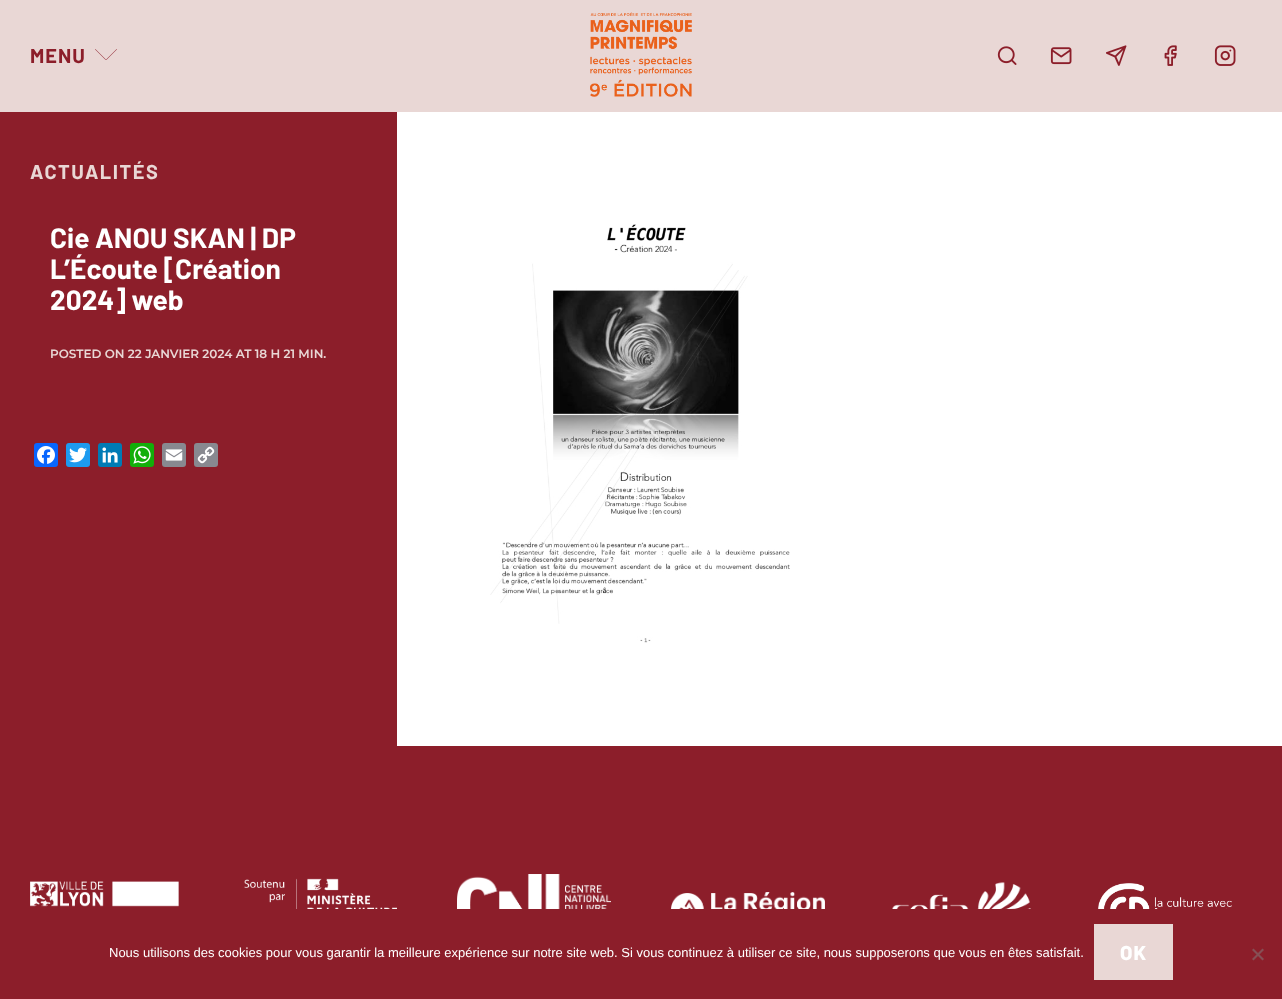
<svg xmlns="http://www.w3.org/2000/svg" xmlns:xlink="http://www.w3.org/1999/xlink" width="1282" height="999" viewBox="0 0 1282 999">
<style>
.cls-1{font:bold 20px Barlow;letter-spacing:1px;fill:#8c1e2a}
.cls-2{font:bold 20px Barlow;letter-spacing:1.5px;fill:#e9d7d5}
.cls-3{font:bold 28px Barlow;fill:#ffffff}
.cls-4{font:600 12px Montserrat;fill:#e9d7d5}
.cls-5{font:13px Liberation Sans;fill:#ffffff}
.cls-6{font:800 20px Barlow;letter-spacing:1px;fill:#ffffff}
</style>
<rect width="100%" height="100%" fill="#ffffff"/>
<rect fill="#e9d7d5" x="0" y="0" width="1282" height="112"/>
<image xlink:href="image0.png" x="95" y="49" width="22" height="11"/>
<image xlink:href="image1.png" x="590" y="12" width="102" height="85"/>
<image xlink:href="image2.png" x="997" y="46" width="20" height="19"/>
<image xlink:href="image3.png" x="1050" y="47" width="22" height="18"/>
<image xlink:href="image4.png" x="1106" y="45" width="21" height="21"/>
<image xlink:href="image5.png" x="1164" y="45" width="13" height="21"/>
<image xlink:href="image6.png" x="1214" y="45" width="22" height="21"/>
<rect fill="#8c1e2a" x="0" y="112" width="397" height="634"/>
<rect fill="#0866ff" x="34" y="443" width="24" height="24" rx="3"/>
<image xlink:href="image7.png" x="37" y="446" width="18" height="18"/>
<rect fill="#1d9bf0" x="66" y="443" width="24" height="24" rx="3"/>
<image xlink:href="image8.png" x="69" y="447" width="18" height="16"/>
<rect fill="#007bb5" x="98" y="443" width="24" height="24" rx="3"/>
<image xlink:href="image9.png" x="102" y="447" width="16" height="16"/>
<rect fill="#12af0a" x="130" y="443" width="24" height="24" rx="3"/>
<image xlink:href="image10.png" x="133" y="446" width="18" height="18"/>
<rect fill="#888990" x="162" y="443" width="24" height="24" rx="3"/>
<image xlink:href="image11.png" x="165" y="449" width="18" height="12"/>
<rect fill="#888990" x="194" y="443" width="24" height="24" rx="3"/>
<image xlink:href="image12.png" x="197" y="446" width="18" height="18"/>
<image xlink:href="image13.png" x="490" y="224" width="300" height="419"/>
<rect fill="#8c1e2a" x="0" y="746" width="1282" height="253"/>
<image xlink:href="image14.png" x="30" y="881" width="149" height="26"/>
<image xlink:href="image15.png" x="244" y="878" width="153" height="31"/>
<image xlink:href="image16.png" x="457" y="874" width="154" height="35"/>
<image xlink:href="image17.png" x="671" y="892" width="154" height="17"/>
<image xlink:href="image18.png" x="892" y="882" width="139" height="27"/>
<image xlink:href="image19.png" x="1098" y="883" width="134" height="26"/>
<rect fill="#e9d7d5" x="1094" y="924" width="79" height="56"/>
<path fill="#864f55" d="M1262.5 948.5L1264 950L1253.5 960.5L1252 959Z"/>
<path fill="#864f55" d="M1252 950L1253.5 948.5L1264 959L1262.5 960.5Z"/>
<text class="cls-1" x="30" y="63">MENU</text>
<text class="cls-2" x="30" y="179">ACTUALITÉS</text>
<text class="cls-3"><tspan x="50" y="248">Cie ANOU SKAN | DP</tspan><tspan x="50" y="279">L’Écoute [Création</tspan><tspan x="50" y="310">2024] web</tspan></text>
<text class="cls-4" x="50" y="358">POSTED ON 22 JANVIER 2024 AT 18 H 21 MIN.</text>
<text class="cls-5" x="109" y="957">Nous utilisons des cookies pour vous garantir la meilleure expérience sur notre site web. Si vous continuez à utiliser ce site, nous supposerons que vous en êtes satisfait.</text>
<text class="cls-6" x="1120" y="960">OK</text>
</svg>
